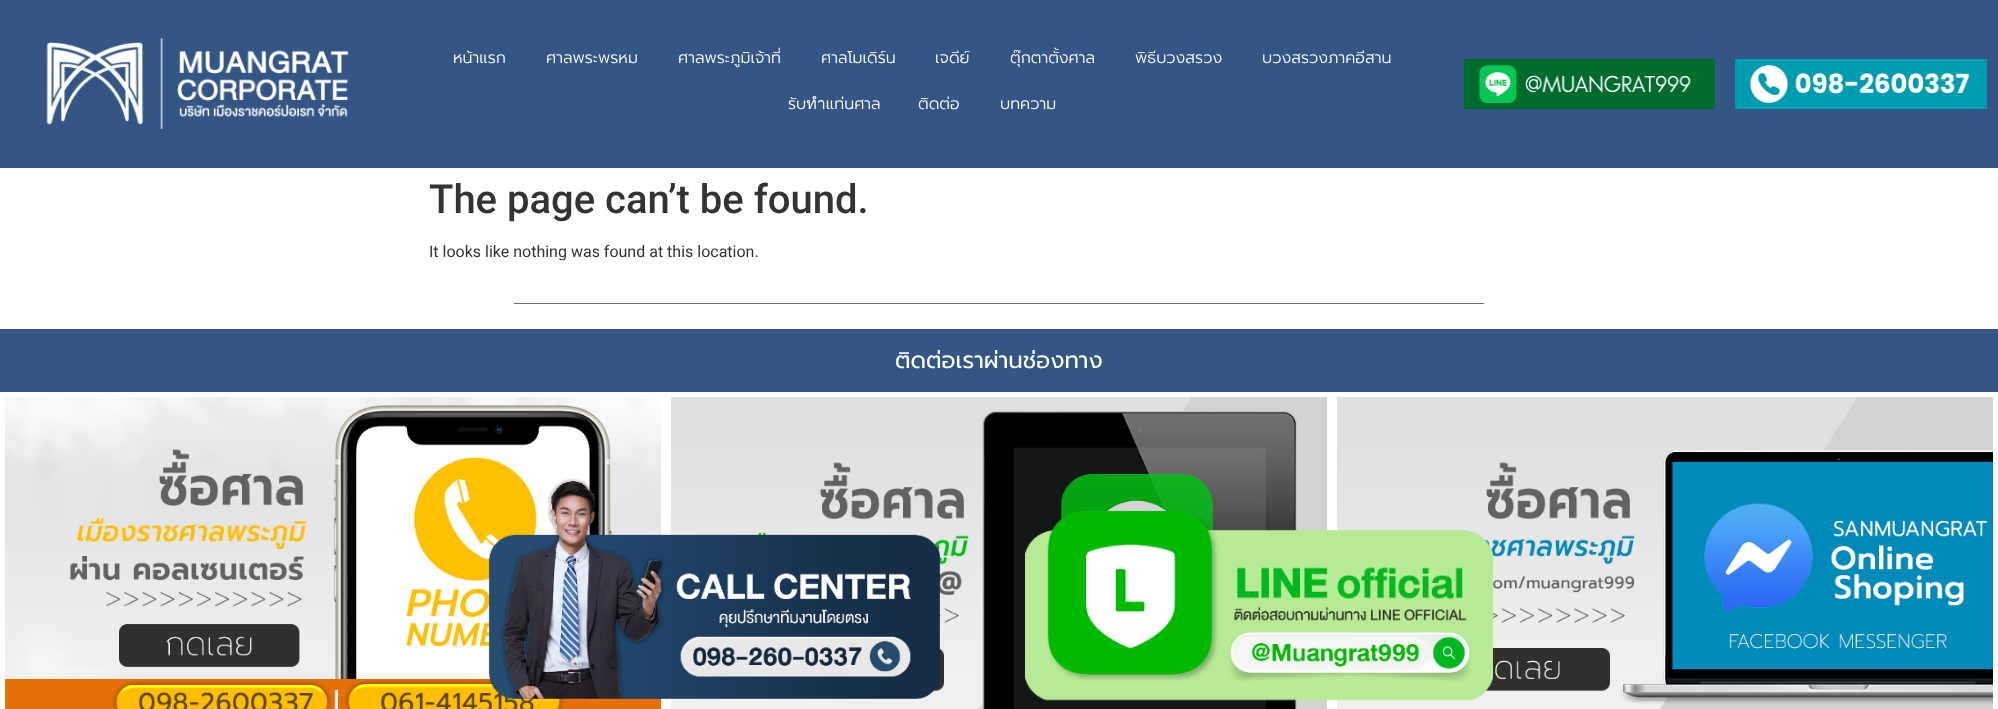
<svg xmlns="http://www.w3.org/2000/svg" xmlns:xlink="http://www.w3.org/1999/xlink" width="1998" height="709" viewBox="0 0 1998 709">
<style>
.cls-1{font:300 16px Prompt;fill:#ffffff}
.cls-2{font:500 40px Roboto;fill:#333333}
.cls-3{font:16px Roboto;fill:#333333}
.cls-4{font:23px Prompt;fill:#ffffff}
</style>
<rect width="100%" height="100%" fill="#ffffff"/>
<rect fill="#335685" x="0" y="0" width="1998" height="168"/>
<image xlink:href="image0.png" x="46" y="38" width="303" height="91"/>
<image xlink:href="image1.png" x="1464" y="59" width="251" height="50"/>
<image xlink:href="image2.png" x="1735" y="59" width="252" height="50"/>
<rect fill="#6e6e6e" x="514" y="303" width="970" height="1"/>
<rect fill="#335685" x="0" y="329" width="1998" height="63"/>
<image xlink:href="image3.png" x="5" y="397" width="656" height="312"/>
<image xlink:href="image4.png" x="671" y="397" width="656" height="312"/>
<image xlink:href="image5.png" x="1337" y="397" width="656" height="312"/>
<image xlink:href="image6.png" x="488" y="478" width="452" height="221"/>
<image xlink:href="image7.png" x="1025" y="510" width="468" height="191"/>
<text class="cls-1" x="453" y="63">หน้าแรก</text>
<text class="cls-1" x="546" y="63">ศาลพระพรหม</text>
<text class="cls-1" x="678" y="63">ศาลพระภูมิเจ้าที่</text>
<text class="cls-1" x="821" y="63">ศาลโมเดิร์น</text>
<text class="cls-1" x="935" y="63">เจดีย์</text>
<text class="cls-1" x="1010" y="63">ตุ๊กตาตั้งศาล</text>
<text class="cls-1" x="1135" y="63">พิธีบวงสรวง</text>
<text class="cls-1" x="1262" y="63">บวงสรวงภาคอีสาน</text>
<text class="cls-1" x="788" y="109">รับทำแท่นศาล</text>
<text class="cls-1" x="918" y="109">ติดต่อ</text>
<text class="cls-1" x="1000" y="109">บทความ</text>
<text class="cls-2" x="429" y="213">The page can’t be found.</text>
<text class="cls-3" x="429" y="257">It looks like nothing was found at this location.</text>
<text class="cls-4" x="895" y="368">ติดต่อเราผ่านช่องทาง</text>
</svg>
